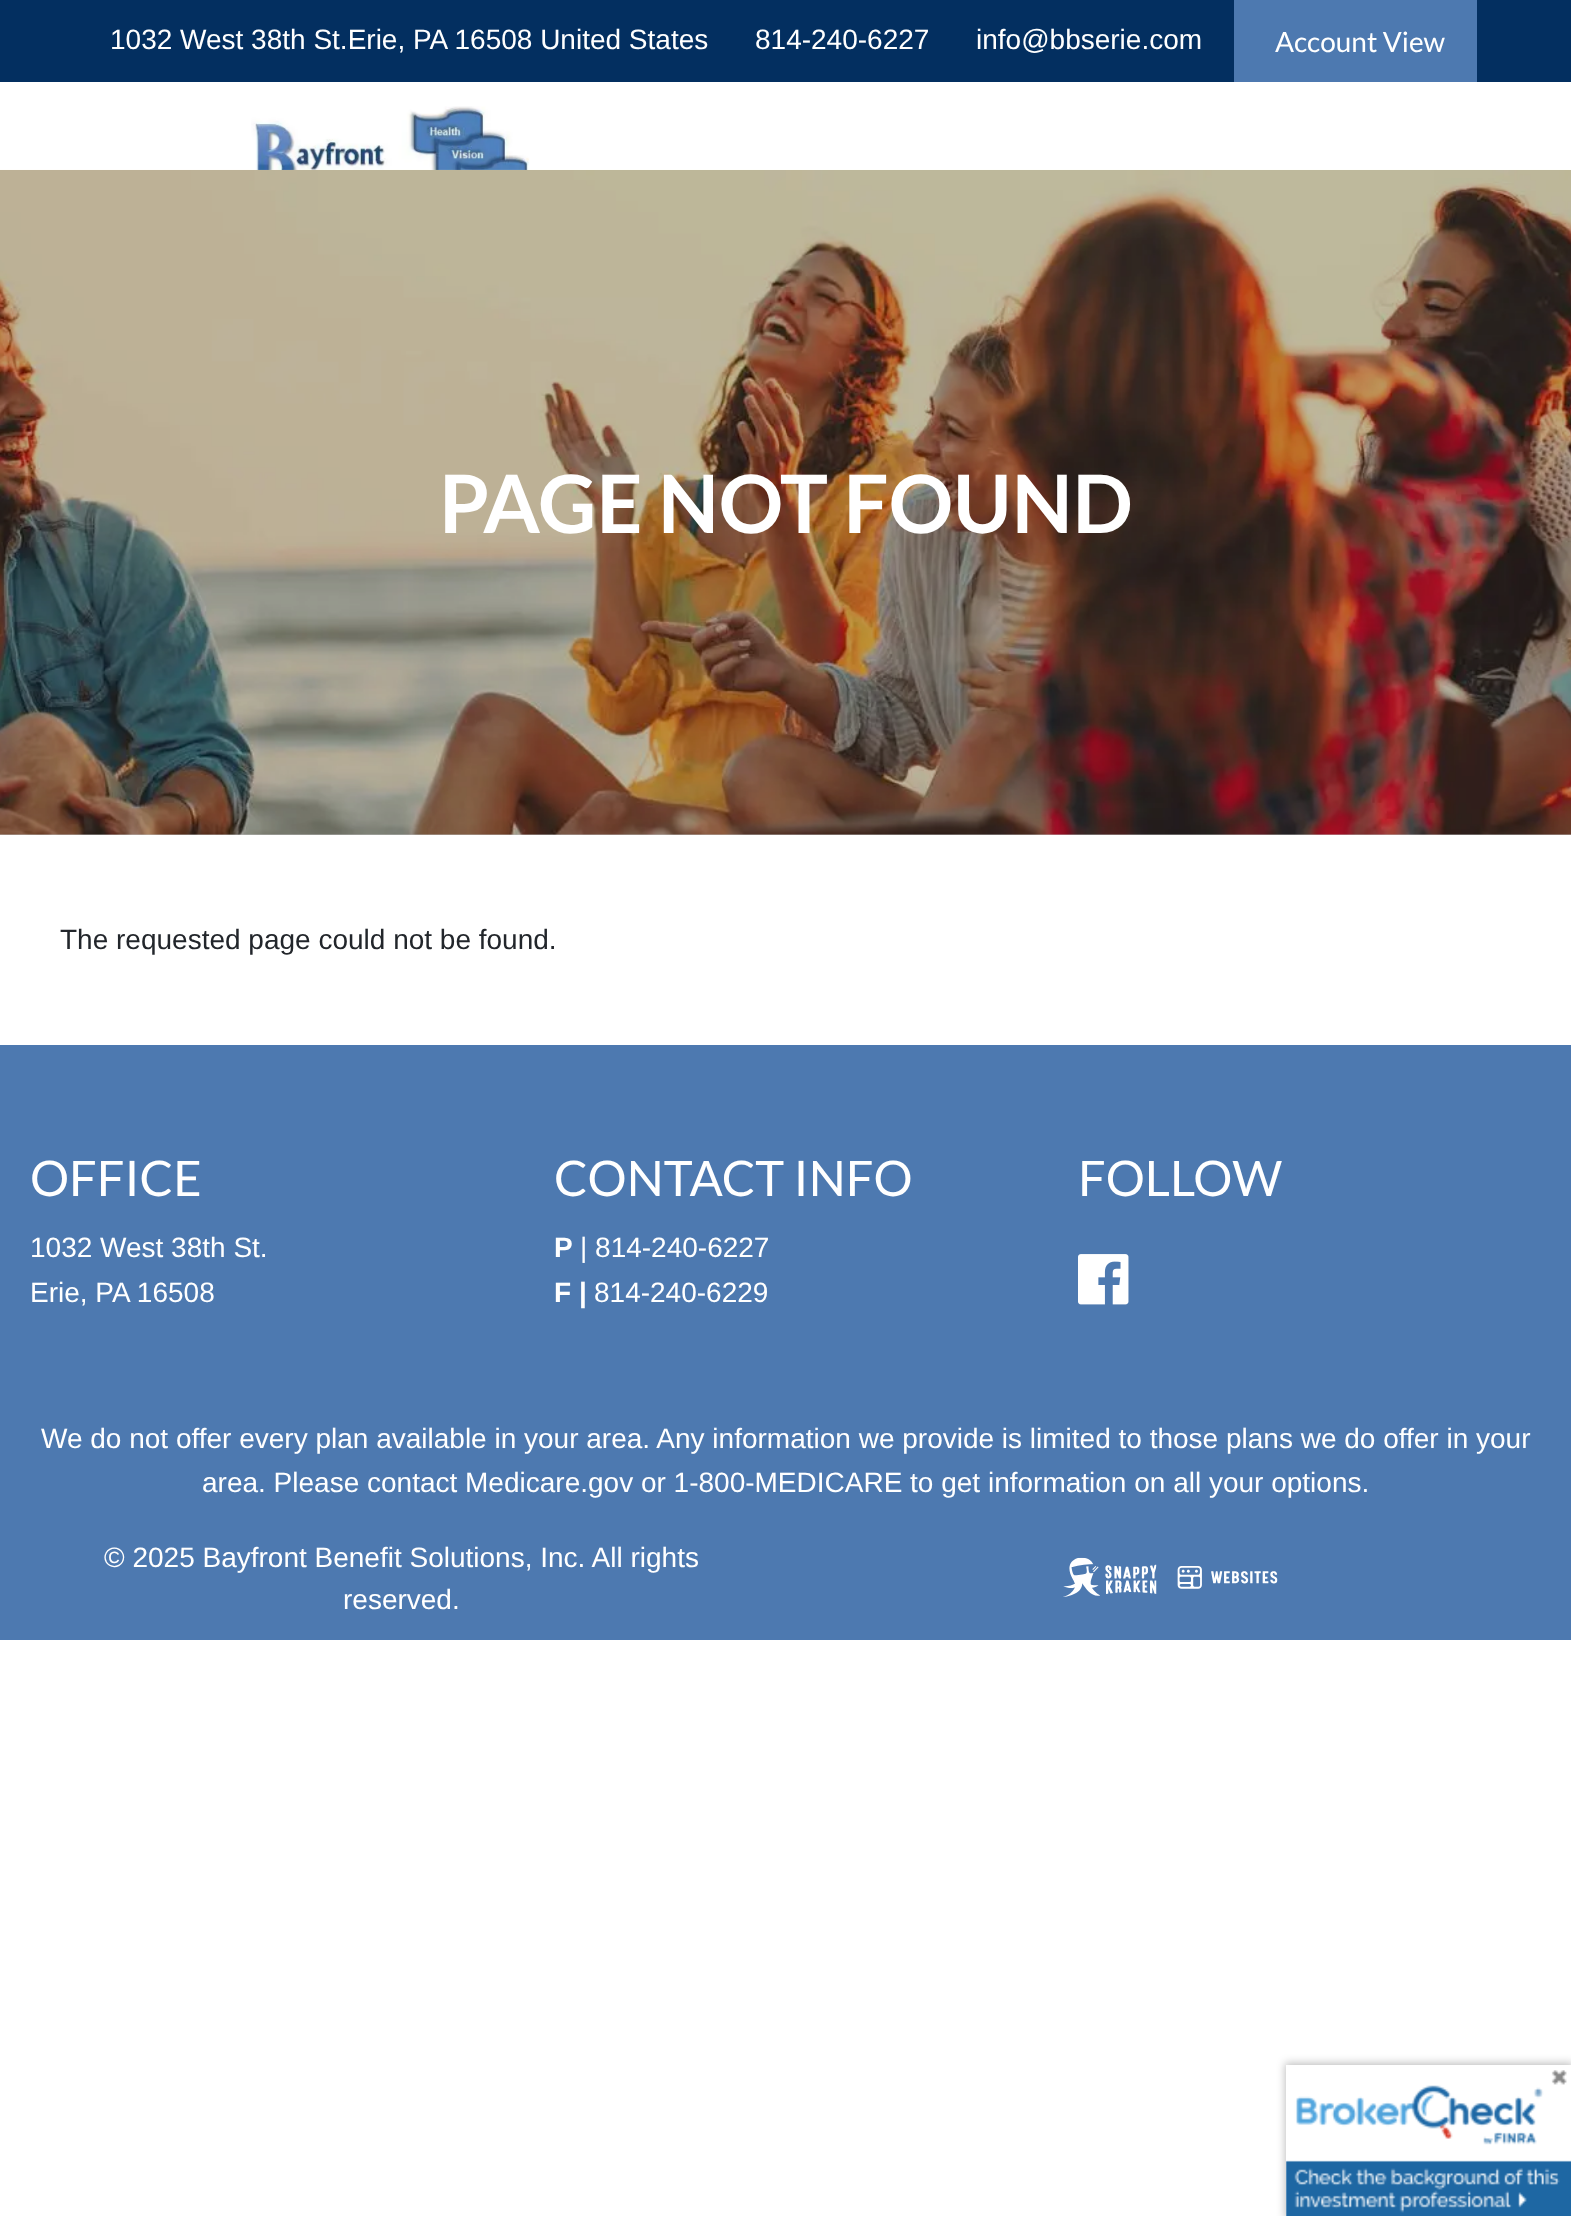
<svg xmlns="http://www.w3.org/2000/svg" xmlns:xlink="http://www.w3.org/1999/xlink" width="1571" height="2216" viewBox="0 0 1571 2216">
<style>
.cls-1{font:28px Liberation Sans;fill:#ffffff}
.cls-2{font:28px Lato;fill:#ffffff}
.cls-3{font:bold 80.5px Lato;fill:#ffffff}
.cls-4{font:28px Liberation Sans;fill:#22262b}
.cls-5{font:49px Lato;fill:#ffffff}
.cls-6{font:bold 28px Liberation Sans;fill:#ffffff}
</style>
<defs>
<clipPath id="clip1"><path d="M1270 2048H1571V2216H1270ZM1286 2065H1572V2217H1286Z" clip-rule="evenodd"/></clipPath>
</defs>
<rect width="100%" height="100%" fill="#ffffff"/>
<rect fill="#4d79b0" x="0" y="1638" width="1571" height="2"/>
<rect fill="#032f60" x="0" y="0" width="1571" height="82"/>
<rect fill="#4d79b0" x="1234" y="0" width="243" height="82"/>
<image xlink:href="image0.png" x="251" y="106" width="330" height="64"/>
<image xlink:href="image1.png" x="0" y="169" width="1571" height="666"/>
<rect fill="#000000" fill-opacity="0.25" x="0" y="170" width="1571" height="665"/>
<rect fill="#4d79b0" x="0" y="1045" width="1571" height="593"/>
<image xlink:href="image2.png" x="1078" y="1254" width="51" height="51"/>
<image xlink:href="image3.png" x="1063" y="1557" width="215" height="40"/>
<g clip-path="url(#clip1)">
<rect fill="#000000" fill-opacity="0.25" filter="blur(4.5px)" x="1285" y="2063" width="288" height="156"/>
</g>
<image xlink:href="image4.png" x="1286" y="2070" width="285" height="146"/>
<text class="cls-1" x="110" y="49">1032 West 38th St.Erie, PA 16508 United States</text>
<text class="cls-1" x="755" y="49">814-240-6227</text>
<text class="cls-1" x="976" y="49">info@bbserie.com</text>
<text class="cls-2" x="1275" y="52">Account View</text>
<text class="cls-3" x="439" y="533">PAGE NOT FOUND</text>
<text class="cls-4" x="60" y="949">The requested page could not be found.</text>
<text class="cls-5" x="30" y="1196">OFFICE</text>
<text class="cls-1"><tspan x="30" y="1257">1032 West 38th St.</tspan><tspan x="30" y="1302">Erie, PA 16508</tspan></text>
<text class="cls-5" x="554" y="1196">CONTACT INFO</text>
<text class="cls-6" x="554" y="1257">P</text>
<text class="cls-1" x="580" y="1257">| 814-240-6227</text>
<text class="cls-6" x="554" y="1302">F |</text>
<text class="cls-1" x="594" y="1302">814-240-6229</text>
<text class="cls-5" x="1078" y="1196">FOLLOW</text>
<text class="cls-1" x="41" y="1448">We do not offer every plan available in your area. Any information we provide is limited to those plans we do offer in your</text>
<text class="cls-1" x="202" y="1492">area. Please contact Medicare.gov or 1-800-MEDICARE to get information on all your options.</text>
<text class="cls-1" x="104" y="1567">© 2025 Bayfront Benefit Solutions, Inc. All rights</text>
<text class="cls-1" x="343" y="1609">reserved.</text>
</svg>
